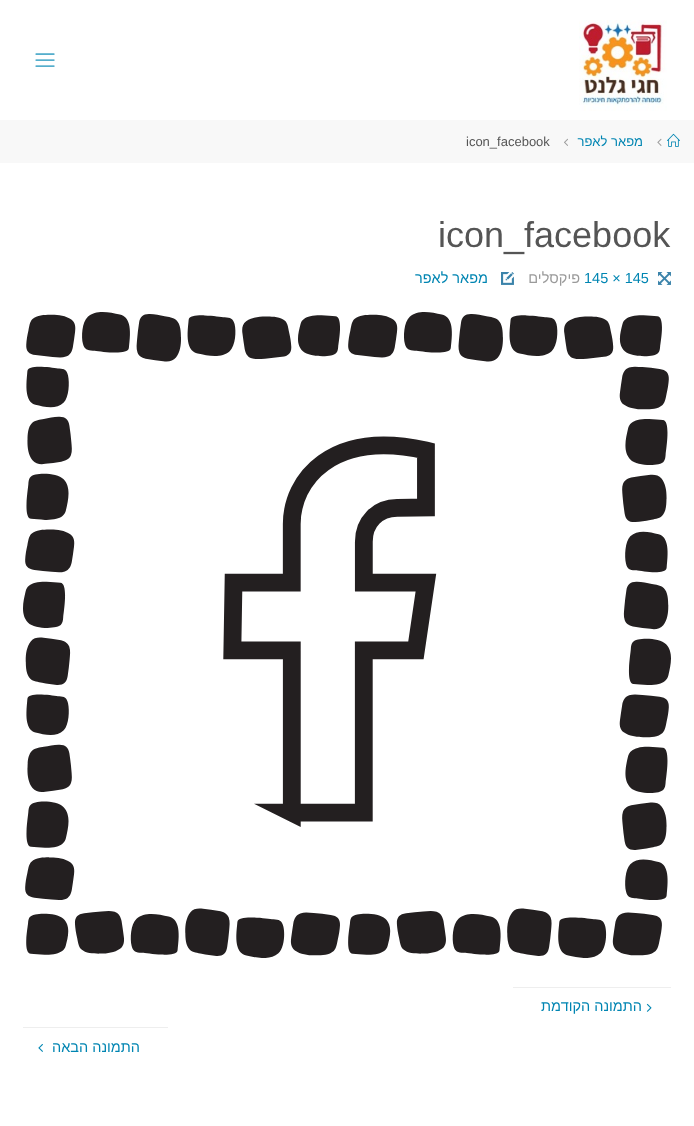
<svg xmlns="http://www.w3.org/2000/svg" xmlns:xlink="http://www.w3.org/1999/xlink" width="694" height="1126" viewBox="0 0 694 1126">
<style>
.cls-1{font:13px Liberation Sans;direction:rtl;fill:#0085b2}
.cls-2{font:13px Liberation Sans;fill:#555555}
.cls-3{font:36px Liberation Sans;fill:#555555}
.cls-4{font:14.5px Liberation Sans;fill:#0085b2}
.cls-5{font:14.5px Liberation Sans;direction:rtl;fill:#9a9a9a}
.cls-6{font:14.5px Liberation Sans;direction:rtl;fill:#0085b2}
</style>
<rect width="100%" height="100%" fill="#ffffff"/>
<image xlink:href="image0.png" x="579" y="20" width="88" height="91"/>
<image xlink:href="image1.png" x="35" y="53" width="20" height="14"/>
<rect fill="#f8f8f8" x="0" y="120" width="694" height="43"/>
<image xlink:href="image2.png" x="667" y="133" width="13" height="14"/>
<image xlink:href="image3.png" x="657" y="138" width="5" height="8"/>
<image xlink:href="image4.png" x="564" y="138" width="4" height="8"/>
<image xlink:href="image5.png" x="658" y="272" width="13" height="13"/>
<image xlink:href="image6.png" x="501" y="272" width="13" height="13"/>
<image xlink:href="image7.png" x="23" y="312" width="648" height="646"/>
<rect fill="#eeeeee" x="513" y="987" width="158" height="1"/>
<image xlink:href="image8.png" x="646" y="1003" width="6" height="9"/>
<rect fill="#eeeeee" x="23" y="1027" width="145" height="1"/>
<image xlink:href="image9.png" x="38" y="1044" width="5" height="8"/>
<text class="cls-1" x="643" y="146">מפאר לאפר</text>
<text class="cls-2" x="466" y="146">icon_facebook</text>
<text class="cls-3" x="438" y="247">icon_facebook</text>
<text class="cls-4" x="584" y="283">145 × 145</text>
<text class="cls-5" x="580" y="283">פיקסלים</text>
<text class="cls-6" x="488" y="283">מפאר לאפר</text>
<text class="cls-6" x="642" y="1011">התמונה הקודמת</text>
<text class="cls-6" x="140" y="1052">התמונה הבאה</text>
</svg>
